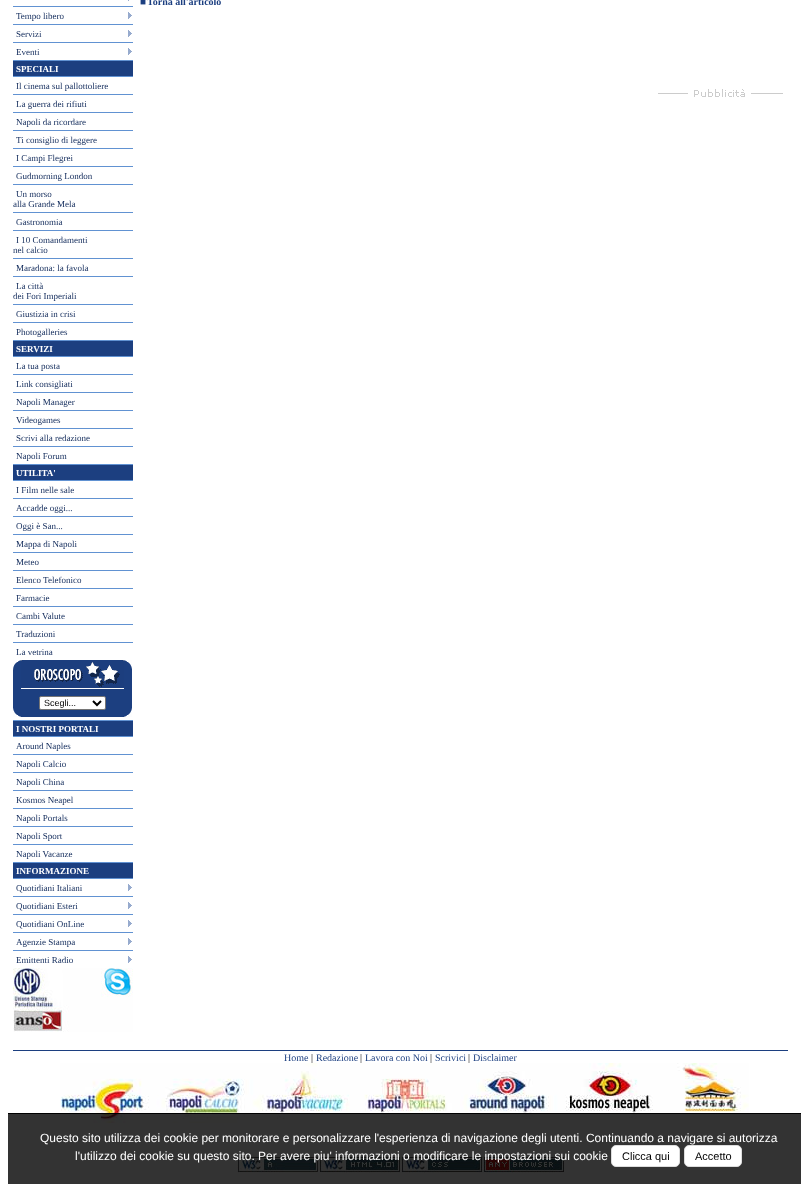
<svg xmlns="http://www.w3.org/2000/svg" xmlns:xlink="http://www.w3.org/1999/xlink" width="801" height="1184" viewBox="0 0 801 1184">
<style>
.cls-1{font:10px Liberation Serif;fill:#1c3f80}
.cls-2{font:bold 10px Liberation Serif;fill:#1c3f80}
.cls-3{font:9px Liberation Serif;fill:#132c5c}
.cls-4{font:bold 9px Liberation Serif;fill:#ffffff}
.cls-5{font:9px Liberation Sans;fill:#000000}
.cls-6{font:10px Liberation Serif;fill:#000000}
.cls-7{font:12px Liberation Sans;fill:#ffffff}
.cls-8{font:11px Liberation Sans;fill:#000000}
</style>
<rect width="100%" height="100%" fill="#ffffff"/>
<rect fill="#97abce" x="128" y="0" width="1" height="1"/>
<image xlink:href="image0.png" x="128" y="12" width="4" height="7"/>
<rect fill="#6192d2" x="13" y="6" width="120" height="1"/>
<image xlink:href="image0.png" x="128" y="30" width="4" height="7"/>
<rect fill="#6192d2" x="13" y="24" width="120" height="1"/>
<image xlink:href="image0.png" x="128" y="48" width="4" height="7"/>
<rect fill="#6192d2" x="13" y="42" width="120" height="1"/>
<rect fill="#1c3f80" x="13" y="61" width="120" height="15"/>
<rect fill="#6192d2" x="13" y="60" width="120" height="1"/>
<rect fill="#6192d2" x="13" y="76" width="120" height="1"/>
<rect fill="#6192d2" x="13" y="94" width="120" height="1"/>
<rect fill="#6192d2" x="13" y="112" width="120" height="1"/>
<rect fill="#6192d2" x="13" y="130" width="120" height="1"/>
<rect fill="#6192d2" x="13" y="148" width="120" height="1"/>
<rect fill="#6192d2" x="13" y="166" width="120" height="1"/>
<rect fill="#6192d2" x="13" y="184" width="120" height="1"/>
<rect fill="#6192d2" x="13" y="212" width="120" height="1"/>
<rect fill="#6192d2" x="13" y="230" width="120" height="1"/>
<rect fill="#6192d2" x="13" y="258" width="120" height="1"/>
<rect fill="#6192d2" x="13" y="276" width="120" height="1"/>
<rect fill="#6192d2" x="13" y="304" width="120" height="1"/>
<rect fill="#6192d2" x="13" y="322" width="120" height="1"/>
<rect fill="#1c3f80" x="13" y="341" width="120" height="15"/>
<rect fill="#6192d2" x="13" y="340" width="120" height="1"/>
<rect fill="#6192d2" x="13" y="356" width="120" height="1"/>
<rect fill="#6192d2" x="13" y="374" width="120" height="1"/>
<rect fill="#6192d2" x="13" y="392" width="120" height="1"/>
<rect fill="#6192d2" x="13" y="410" width="120" height="1"/>
<rect fill="#6192d2" x="13" y="428" width="120" height="1"/>
<rect fill="#6192d2" x="13" y="446" width="120" height="1"/>
<rect fill="#1c3f80" x="13" y="465" width="120" height="15"/>
<rect fill="#6192d2" x="13" y="464" width="120" height="1"/>
<rect fill="#6192d2" x="13" y="480" width="120" height="1"/>
<rect fill="#6192d2" x="13" y="498" width="120" height="1"/>
<rect fill="#6192d2" x="13" y="516" width="120" height="1"/>
<rect fill="#6192d2" x="13" y="534" width="120" height="1"/>
<rect fill="#6192d2" x="13" y="552" width="120" height="1"/>
<rect fill="#6192d2" x="13" y="570" width="120" height="1"/>
<rect fill="#6192d2" x="13" y="588" width="120" height="1"/>
<rect fill="#6192d2" x="13" y="606" width="120" height="1"/>
<rect fill="#6192d2" x="13" y="624" width="120" height="1"/>
<rect fill="#6192d2" x="13" y="642" width="120" height="1"/>
<image xlink:href="image1.png" x="13" y="660" width="8" height="29"/>
<image xlink:href="image2.png" x="21" y="660" width="103" height="29"/>
<image xlink:href="image3.png" x="124" y="660" width="8" height="29"/>
<rect fill="#1c3f80" x="13" y="689" width="8" height="15"/>
<rect fill="#1c3f80" x="21" y="689" width="103" height="28"/>
<rect fill="#ffffff" stroke="#767676" x="39.5" y="696.5" width="66" height="13" rx="1.5"/>
<path fill="none" stroke="#000000" stroke-width="2" d="M93 701L97 705L101 701"/>
<rect fill="#1c3f80" x="124" y="689" width="8" height="15"/>
<image xlink:href="image4.png" x="13" y="704" width="8" height="13"/>
<image xlink:href="image5.png" x="124" y="704" width="8" height="13"/>
<rect fill="#1c3f80" x="13" y="721" width="120" height="15"/>
<rect fill="#6192d2" x="13" y="720" width="120" height="1"/>
<rect fill="#6192d2" x="13" y="736" width="120" height="1"/>
<rect fill="#6192d2" x="13" y="754" width="120" height="1"/>
<rect fill="#6192d2" x="13" y="772" width="120" height="1"/>
<rect fill="#6192d2" x="13" y="790" width="120" height="1"/>
<rect fill="#6192d2" x="13" y="808" width="120" height="1"/>
<rect fill="#6192d2" x="13" y="826" width="120" height="1"/>
<rect fill="#6192d2" x="13" y="844" width="120" height="1"/>
<rect fill="#1c3f80" x="13" y="863" width="120" height="15"/>
<rect fill="#6192d2" x="13" y="862" width="120" height="1"/>
<image xlink:href="image0.png" x="128" y="884" width="4" height="7"/>
<rect fill="#6192d2" x="13" y="878" width="120" height="1"/>
<image xlink:href="image0.png" x="128" y="902" width="4" height="7"/>
<rect fill="#6192d2" x="13" y="896" width="120" height="1"/>
<image xlink:href="image0.png" x="128" y="920" width="4" height="7"/>
<rect fill="#6192d2" x="13" y="914" width="120" height="1"/>
<image xlink:href="image0.png" x="128" y="938" width="4" height="7"/>
<rect fill="#6192d2" x="13" y="932" width="120" height="1"/>
<image xlink:href="image0.png" x="128" y="956" width="4" height="7"/>
<rect fill="#6192d2" x="13" y="950" width="120" height="1"/>
<image xlink:href="image6.png" x="13" y="968" width="120" height="64"/>
<image xlink:href="image7.png" x="658" y="89" width="125" height="8"/>
<rect fill="#1c3f80" x="13" y="1050" width="775" height="1"/>
<image xlink:href="image9.png" x="237" y="1156" width="82" height="17"/>
<image xlink:href="image10.png" x="319" y="1156" width="82" height="17"/>
<image xlink:href="image11.png" x="401" y="1156" width="82" height="17"/>
<image xlink:href="image12.png" x="483" y="1156" width="82" height="17"/>
<text class="cls-1" x="140" y="5">■</text>
<text class="cls-2" x="147" y="5">Torna all'articolo</text>
<text class="cls-3" x="16" y="19">Tempo libero</text>
<text class="cls-3" x="16" y="37">Servizi</text>
<text class="cls-3" x="16" y="55">Eventi</text>
<text class="cls-4" x="16" y="72">SPECIALI</text>
<text class="cls-3" x="16" y="89">Il cinema sul pallottoliere</text>
<text class="cls-3" x="16" y="107">La guerra dei rifiuti</text>
<text class="cls-3" x="16" y="125">Napoli da ricordare</text>
<text class="cls-3" x="16" y="143">Ti consiglio di leggere</text>
<text class="cls-3" x="16" y="161">I Campi Flegrei</text>
<text class="cls-3" x="16" y="179">Gudmorning London</text>
<text class="cls-3" x="16" y="197">Un morso</text>
<text class="cls-3" x="13" y="207">alla Grande Mela</text>
<text class="cls-3" x="16" y="225">Gastronomia</text>
<text class="cls-3" x="16" y="243">I 10 Comandamenti</text>
<text class="cls-3" x="13" y="253">nel calcio</text>
<text class="cls-3" x="16" y="271">Maradona: la favola</text>
<text class="cls-3" x="16" y="289">La città</text>
<text class="cls-3" x="13" y="299">dei Fori Imperiali</text>
<text class="cls-3" x="16" y="317">Giustizia in crisi</text>
<text class="cls-3" x="16" y="335">Photogalleries</text>
<text class="cls-4" x="16" y="352">SERVIZI</text>
<text class="cls-3" x="16" y="369">La tua posta</text>
<text class="cls-3" x="16" y="387">Link consigliati</text>
<text class="cls-3" x="16" y="405">Napoli Manager</text>
<text class="cls-3" x="16" y="423">Videogames</text>
<text class="cls-3" x="16" y="441">Scrivi alla redazione</text>
<text class="cls-3" x="16" y="459">Napoli Forum</text>
<text class="cls-4" x="16" y="476">UTILITA'</text>
<text class="cls-3" x="16" y="493">I Film nelle sale</text>
<text class="cls-3" x="16" y="511">Accadde oggi...</text>
<text class="cls-3" x="16" y="529">Oggi è San...</text>
<text class="cls-3" x="16" y="547">Mappa di Napoli</text>
<text class="cls-3" x="16" y="565">Meteo</text>
<text class="cls-3" x="16" y="583">Elenco Telefonico</text>
<text class="cls-3" x="16" y="601">Farmacie</text>
<text class="cls-3" x="16" y="619">Cambi Valute</text>
<text class="cls-3" x="16" y="637">Traduzioni</text>
<text class="cls-3" x="16" y="655">La vetrina</text>
<text class="cls-5" x="44" y="706">Scegli...</text>
<text class="cls-4" x="16" y="732">I NOSTRI PORTALI</text>
<text class="cls-3" x="16" y="749">Around Naples</text>
<text class="cls-3" x="16" y="767">Napoli Calcio</text>
<text class="cls-3" x="16" y="785">Napoli China</text>
<text class="cls-3" x="16" y="803">Kosmos Neapel</text>
<text class="cls-3" x="16" y="821">Napoli Portals</text>
<text class="cls-3" x="16" y="839">Napoli Sport</text>
<text class="cls-3" x="16" y="857">Napoli Vacanze</text>
<text class="cls-4" x="16" y="874">INFORMAZIONE</text>
<text class="cls-3" x="16" y="891">Quotidiani Italiani</text>
<text class="cls-3" x="16" y="909">Quotidiani Esteri</text>
<text class="cls-3" x="16" y="927">Quotidiani OnLine</text>
<text class="cls-3" x="16" y="945">Agenzie Stampa</text>
<text class="cls-3" x="16" y="963">Emittenti Radio</text>
<text class="cls-1" x="284" y="1061">Home</text>
<text class="cls-6" x="311" y="1061">|</text>
<text class="cls-1" x="316" y="1061">Redazione</text>
<text class="cls-6" x="360" y="1061">|</text>
<text class="cls-1" x="365" y="1061">Lavora con Noi</text>
<text class="cls-6" x="430" y="1061">|</text>
<text class="cls-1" x="435" y="1061">Scrivici</text>
<text class="cls-6" x="468" y="1061">|</text>
<text class="cls-1" x="473" y="1061">Disclaimer</text>
<image xlink:href="image8.png" x="60" y="1063" width="689" height="60"/>
<rect fill="#000000" fill-opacity="0.8" x="8" y="1114" width="793" height="70"/>
<rect fill="#000000" x="8" y="1113" width="793" height="1"/>
<text class="cls-7" x="40" y="1142">Questo sito utilizza dei cookie per monitorare e personalizzare l'esperienza di navigazione degli utenti. Continuando a navigare si autorizza</text>
<text class="cls-7" x="75" y="1160">l'utilizzo dei cookie su questo sito. Per avere piu' informazioni o modificare le impostazioni sui cookie</text>
<rect fill="#ffffff" stroke="#dddddd" x="611.5" y="1145.5" width="68" height="21" rx="4.5"/>
<text class="cls-8" x="622" y="1160">Clicca qui</text>
<rect fill="#ffffff" stroke="#dddddd" x="684.5" y="1145.5" width="57" height="21" rx="4.5"/>
<text class="cls-8" x="695" y="1160">Accetto</text>
</svg>
